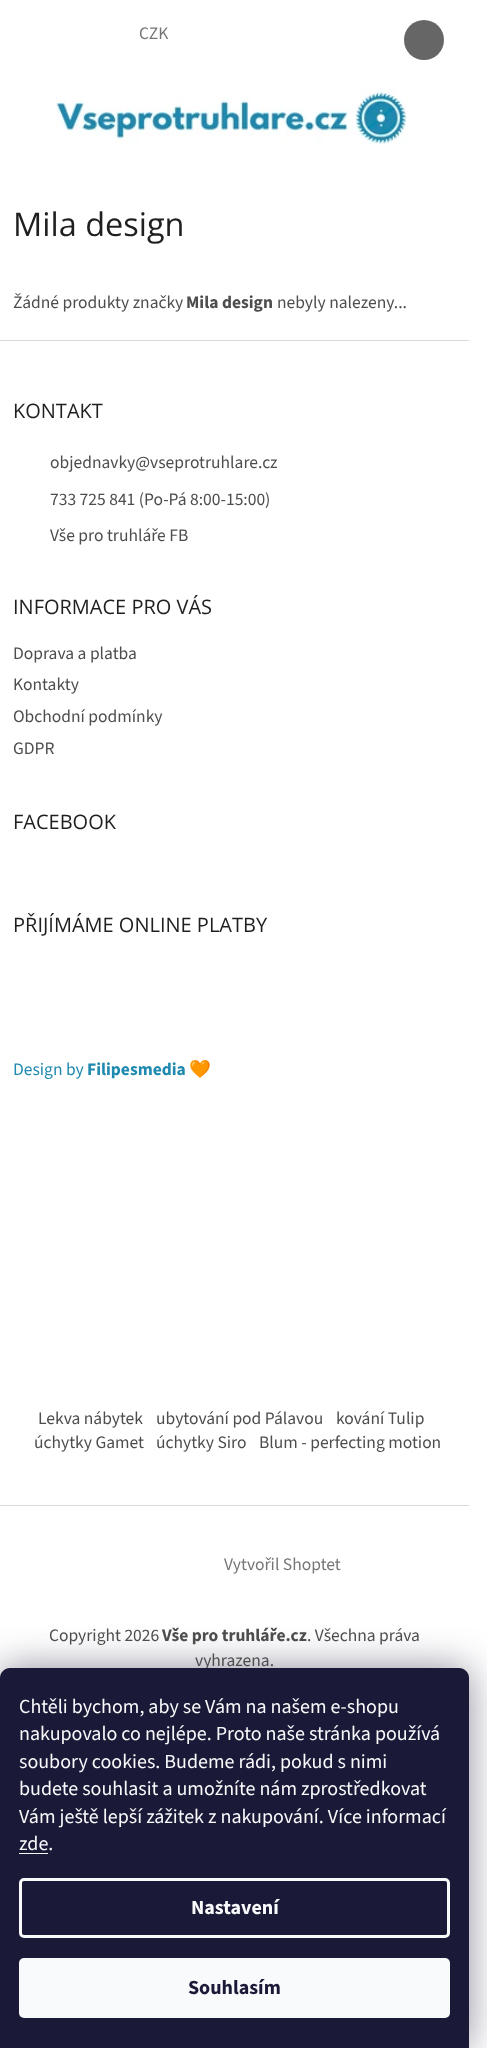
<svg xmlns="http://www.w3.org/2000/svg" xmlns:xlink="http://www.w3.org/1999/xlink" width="487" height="2048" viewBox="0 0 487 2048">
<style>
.cls-1{font:17.5px 'Source Sans 3';fill:#767676}
.cls-2{font:32.5px Open Sans;fill:#1f1f1f}
.cls-3{font:17.5px 'Source Sans 3';fill:#4d4d4d}
.cls-4{font:bold 17.5px 'Source Sans 3';fill:#4d4d4d}
.cls-5{font:20px Open Sans;fill:#1f1f1f}
.cls-6{font:17.5px 'Source Sans 3';fill:#1f89af}
.cls-7{font:bold 17.5px 'Source Sans 3';fill:#1f89af}
.cls-8{font:17.5px Noto Color Emoji;fill:#1f89af}
.cls-9{font:20px 'Source Sans 3';fill:#f8fafb}
.cls-10{font:bold 20px 'Source Sans 3';fill:#f8fafb}
.cls-11{font:bold 20px 'Source Sans 3';fill:#1a1937}
</style>
<rect width="100%" height="100%" fill="#ffffff"/>
<circle fill="#666666" cx="424" cy="40" r="20"/>
<image xlink:href="image0.png" x="56" y="89" width="351" height="56"/>
<rect fill="#dadada" x="0" y="340" width="469" height="1"/>
<rect fill="#dadada" x="0" y="1505" width="469" height="1"/>
<rect fill="#1b1939" fill-opacity="0.5" filter="blur(19px)" x="0" y="1668" width="469" height="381" rx="10"/>
<text class="cls-1" x="139" y="39">CZK</text>
<text class="cls-2" x="13" y="236">Mila design</text>
<text class="cls-3" x="13" y="308">Žádné produkty značky</text>
<text class="cls-4" x="186" y="308">Mila design</text>
<text class="cls-3" x="277" y="308">nebyly nalezeny...</text>
<text class="cls-5" x="13" y="418">KONTAKT</text>
<text class="cls-3" x="50" y="468">objednavky@vseprotruhlare.cz</text>
<text class="cls-3" x="50" y="505">733 725 841 (Po-Pá 8:00-15:00)</text>
<text class="cls-3" x="50" y="541">Vše pro truhláře FB</text>
<text class="cls-5" x="13" y="614">INFORMACE PRO VÁS</text>
<text class="cls-3"><tspan x="13" y="659">Doprava a platba</tspan><tspan x="13" y="690">Kontakty</tspan><tspan x="13" y="722">Obchodní podmínky</tspan><tspan x="13" y="754">GDPR</tspan></text>
<text class="cls-5" x="13" y="829">FACEBOOK</text>
<text class="cls-5" x="13" y="932">PŘIJÍMÁME ONLINE PLATBY</text>
<text class="cls-6" x="13" y="1075">Design by</text>
<text class="cls-7" x="87" y="1075">Filipesmedia</text>
<text class="cls-8" x="189" y="1075">🧡</text>
<text class="cls-3" x="38" y="1424">Lekva nábytek</text>
<text class="cls-3" x="156" y="1424">ubytování pod Pálavou</text>
<text class="cls-3" x="336" y="1424">kování Tulip</text>
<text class="cls-3" x="34" y="1448">úchytky Gamet</text>
<text class="cls-3" x="156" y="1448">úchytky Siro</text>
<text class="cls-3" x="259" y="1448">Blum - perfecting motion</text>
<text class="cls-1" x="224" y="1570">Vytvořil Shoptet</text>
<text class="cls-3" x="49" y="1641">Copyright 2026</text>
<text class="cls-4" x="162" y="1641">Vše pro truhláře.cz</text>
<text class="cls-3" x="307" y="1641">. Všechna práva</text>
<text class="cls-3" x="195" y="1666">vyhrazena.</text>
<path fill="#1a1937" d="M10 1668H459C464.5 1668 469 1672.5 469 1678V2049H0V1678C0 1672.5 4.5 1668 10 1668Z"/>
<text class="cls-9"><tspan x="19" y="1713">Chtěli bychom, aby se Vám na našem e-shopu</tspan><tspan x="19" y="1740">nakupovalo co nejlépe. Proto naše stránka používá</tspan><tspan x="19" y="1768">soubory cookies. Budeme rádi, pokud s nimi</tspan><tspan x="19" y="1795">budete souhlasit a umožníte nám zprostředkovat</tspan><tspan x="19" y="1823">Vám ještě lepší zážitek z nakupování. Více informací</tspan><tspan x="19" y="1850">zde.</tspan></text>
<rect fill="#f8fafb" x="19" y="1853" width="29" height="1"/>
<rect fill="none" stroke="#f8fafb" stroke-width="3" x="20.5" y="1879.5" width="428" height="57" rx="3.5"/>
<text class="cls-10" x="191" y="1914">Nastavení</text>
<rect fill="#f8fafb" x="19" y="1958" width="431" height="60" rx="5"/>
<text class="cls-11" x="188" y="1994">Souhlasím</text>
</svg>
